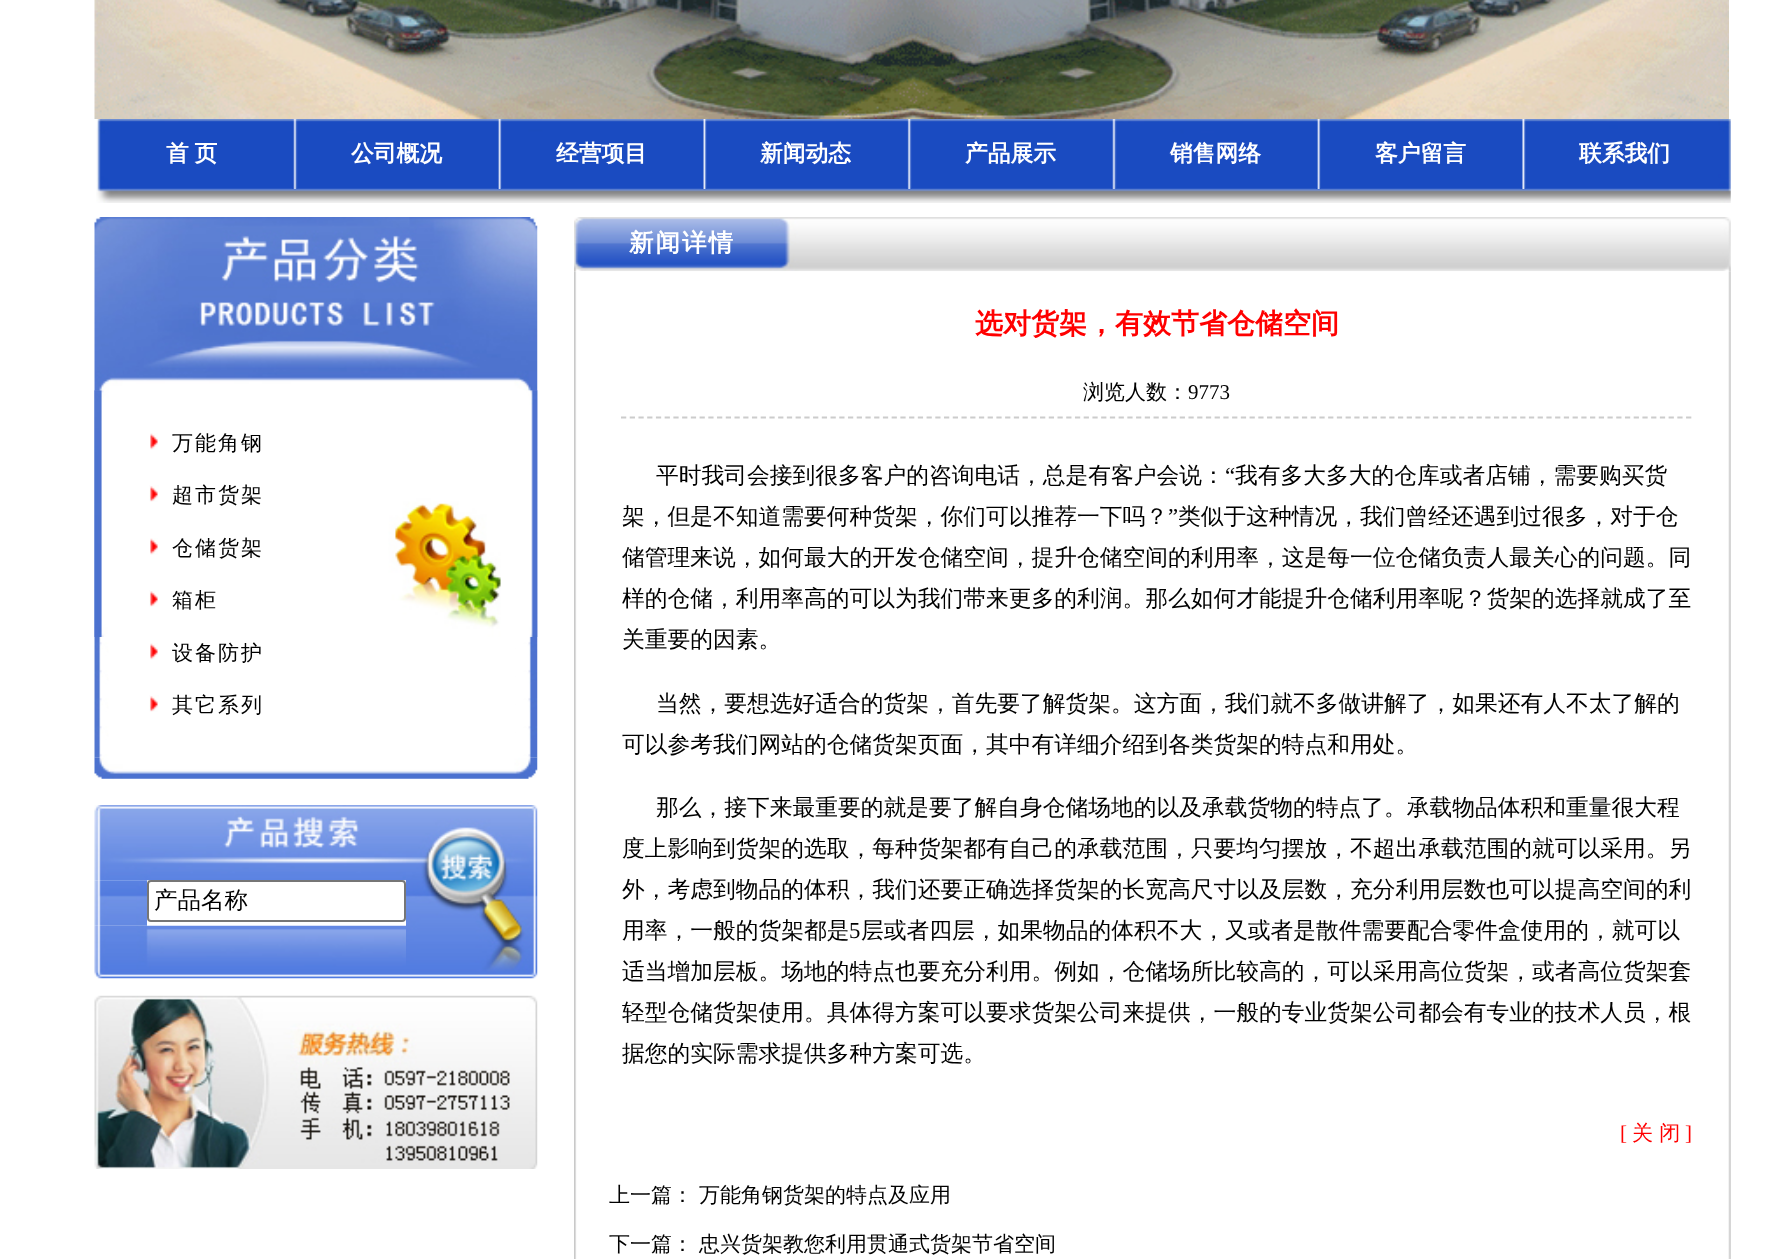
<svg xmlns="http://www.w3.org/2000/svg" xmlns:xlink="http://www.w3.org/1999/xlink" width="1777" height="1259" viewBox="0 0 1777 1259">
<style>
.cls-1{font:bold 22.75px WenQuanYi Zen Hei;fill:#ffffff}
.cls-2{font:500 21px WenQuanYi Zen Hei;letter-spacing:2px;fill:#000000}
.cls-3{font:500 23.5px WenQuanYi Zen Hei;fill:#000000}
.cls-4{font:bold 24.5px WenQuanYi Zen Hei;letter-spacing:2px;fill:#ffffff}
.cls-5{font:bold 28px WenQuanYi Zen Hei;fill:#ff0000}
.cls-6{font:500 21px WenQuanYi Zen Hei;fill:#000000}
.cls-7{font:21px Liberation Serif;fill:#000000}
.cls-8{font:500 22.75px WenQuanYi Zen Hei;fill:#000000}
.cls-9{font:22.75px Liberation Serif;fill:#000000}
.cls-10{font:21px Liberation Serif;fill:#ff0000}
.cls-11{font:500 21px WenQuanYi Zen Hei;fill:#ff0000}
</style>
<rect width="100%" height="100%" fill="#ffffff"/>
<image xlink:href="image0.png" x="94" y="0" width="1635" height="119"/>
<image xlink:href="image1.png" x="96" y="119" width="1635" height="84"/>
<image xlink:href="image2.png" x="292" y="119" width="6" height="70"/>
<image xlink:href="image3.png" x="497" y="119" width="5" height="70"/>
<image xlink:href="image4.png" x="701" y="119" width="6" height="70"/>
<image xlink:href="image5.png" x="906" y="119" width="6" height="70"/>
<image xlink:href="image2.png" x="1111" y="119" width="6" height="70"/>
<image xlink:href="image3.png" x="1316" y="119" width="5" height="70"/>
<image xlink:href="image6.png" x="1520" y="119" width="6" height="70"/>
<image xlink:href="image8.png" x="94" y="390" width="444" height="368"/>
<image xlink:href="image9.png" x="94" y="390" width="444" height="247"/>
<image xlink:href="image7.png" x="94" y="217" width="444" height="174"/>
<image xlink:href="image10.png" x="150" y="433" width="8" height="17"/>
<image xlink:href="image11.png" x="149" y="485" width="10" height="17"/>
<image xlink:href="image10.png" x="150" y="538" width="8" height="17"/>
<image xlink:href="image11.png" x="149" y="590" width="10" height="17"/>
<image xlink:href="image10.png" x="150" y="643" width="8" height="17"/>
<image xlink:href="image11.png" x="149" y="695" width="10" height="17"/>
<image xlink:href="image12.png" x="94" y="757" width="444" height="22"/>
<image xlink:href="image13.png" x="94" y="805" width="312" height="76"/>
<image xlink:href="image14.png" x="406" y="805" width="132" height="174"/>
<image xlink:href="image15.png" x="94" y="880" width="53" height="46"/>
<rect fill="#ffffff" stroke="#767676" stroke-width="2" x="148" y="881" width="257" height="40" rx="3"/>
<image xlink:href="image16.png" x="94" y="925" width="312" height="54"/>
<image xlink:href="image17.png" x="94" y="995" width="444" height="174"/>
<image xlink:href="image18.png" x="574" y="217" width="1157" height="55"/>
<image xlink:href="image19.png" x="574" y="271" width="1157" height="988"/>
<path fill="none" stroke="#cccccc" stroke-width="1.8" stroke-dasharray="5.25 3.48" d="M621 417.5H1692"/>
<text class="cls-1" x="166" y="161" word-spacing="-1">首 页</text>
<text class="cls-1" x="351" y="161">公司概况</text>
<text class="cls-1" x="556" y="161">经营项目</text>
<text class="cls-1" x="760" y="161">新闻动态</text>
<text class="cls-1" x="965" y="161">产品展示</text>
<text class="cls-1" x="1170" y="161">销售网络</text>
<text class="cls-1" x="1375" y="161">客户留言</text>
<text class="cls-1" x="1579" y="161">联系我们</text>
<text class="cls-2" x="172" y="450">万能角钢</text>
<text class="cls-2" x="172" y="502">超市货架</text>
<text class="cls-2" x="172" y="555">仓储货架</text>
<text class="cls-2" x="172" y="607">箱柜</text>
<text class="cls-2" x="172" y="660">设备防护</text>
<text class="cls-2" x="172" y="712">其它系列</text>
<text class="cls-3" x="154" y="908">产品名称</text>
<text class="cls-4" x="629" y="251">新闻详情</text>
<text class="cls-5" x="975" y="333">选对货架，有效节省仓储空间</text>
<text class="cls-6" x="1083" y="399">浏览人数：</text>
<text class="cls-7" x="1188" y="399">9773</text>
<text class="cls-8" x="656" y="483">平时我司会接到很多客户的咨询电话，总是有客户会说：</text>
<text class="cls-9" x="1225" y="483">“</text>
<text class="cls-8" x="1235" y="483">我有多大多大的仓库或者店铺，需要购买货</text>
<text class="cls-8" x="622" y="524">架，但是不知道需要何种货架，你们可以推荐一下吗？</text>
<text class="cls-9" x="1168" y="524">”</text>
<text class="cls-8" x="1178" y="524">类似于这种情况，我们曾经还遇到过很多，对于仓</text>
<text class="cls-8"><tspan x="622" y="565">储管理来说，如何最大的开发仓储空间，提升仓储空间的利用率，这是每一位仓储负责人最关心的问题。同</tspan><tspan x="622" y="606">样的仓储，利用率高的可以为我们带来更多的利润。那么如何才能提升仓储利用率呢？货架的选择就成了至</tspan><tspan x="622" y="647">关重要的因素。</tspan></text>
<text class="cls-8" x="656" y="711">当然，要想选好适合的货架，首先要了解货架。这方面，我们就不多做讲解了，如果还有人不太了解的</text>
<text class="cls-8" x="622" y="752">可以参考我们网站的仓储货架页面，其中有详细介绍到各类货架的特点和用处。</text>
<text class="cls-8" x="656" y="815">那么，接下来最重要的就是要了解自身仓储场地的以及承载货物的特点了。承载物品体积和重量很大程</text>
<text class="cls-8"><tspan x="622" y="856">度上影响到货架的选取，每种货架都有自己的承载范围，只要均匀摆放，不超出承载范围的就可以采用。另</tspan><tspan x="622" y="897">外，考虑到物品的体积，我们还要正确选择货架的长宽高尺寸以及层数，充分利用层数也可以提高空间的利</tspan><tspan x="622" y="938">用率，一般的货架都是</tspan></text>
<text class="cls-9" x="849" y="938">5</text>
<text class="cls-8" x="861" y="938">层或者四层，如果物品的体积不大，又或者是散件需要配合零件盒使用的，就可以</text>
<text class="cls-8"><tspan x="622" y="979">适当增加层板。场地的特点也要充分利用。例如，仓储场所比较高的，可以采用高位货架，或者高位货架套</tspan><tspan x="622" y="1020">轻型仓储货架使用。具体得方案可以要求货架公司来提供，一般的专业货架公司都会有专业的技术人员，根</tspan><tspan x="622" y="1061">据您的实际需求提供多种方案可选。</tspan></text>
<text class="cls-10" x="1620" y="1140">[</text>
<text class="cls-11" x="1632" y="1140">关 闭</text>
<text class="cls-10" x="1685" y="1140">]</text>
<text class="cls-6" x="609" y="1202">上一篇：</text>
<text class="cls-6" x="699" y="1202">万能角钢货架的特点及应用</text>
<text class="cls-6" x="609" y="1251">下一篇：</text>
<text class="cls-6" x="699" y="1251">忠兴货架教您利用贯通式货架节省空间</text>
</svg>
